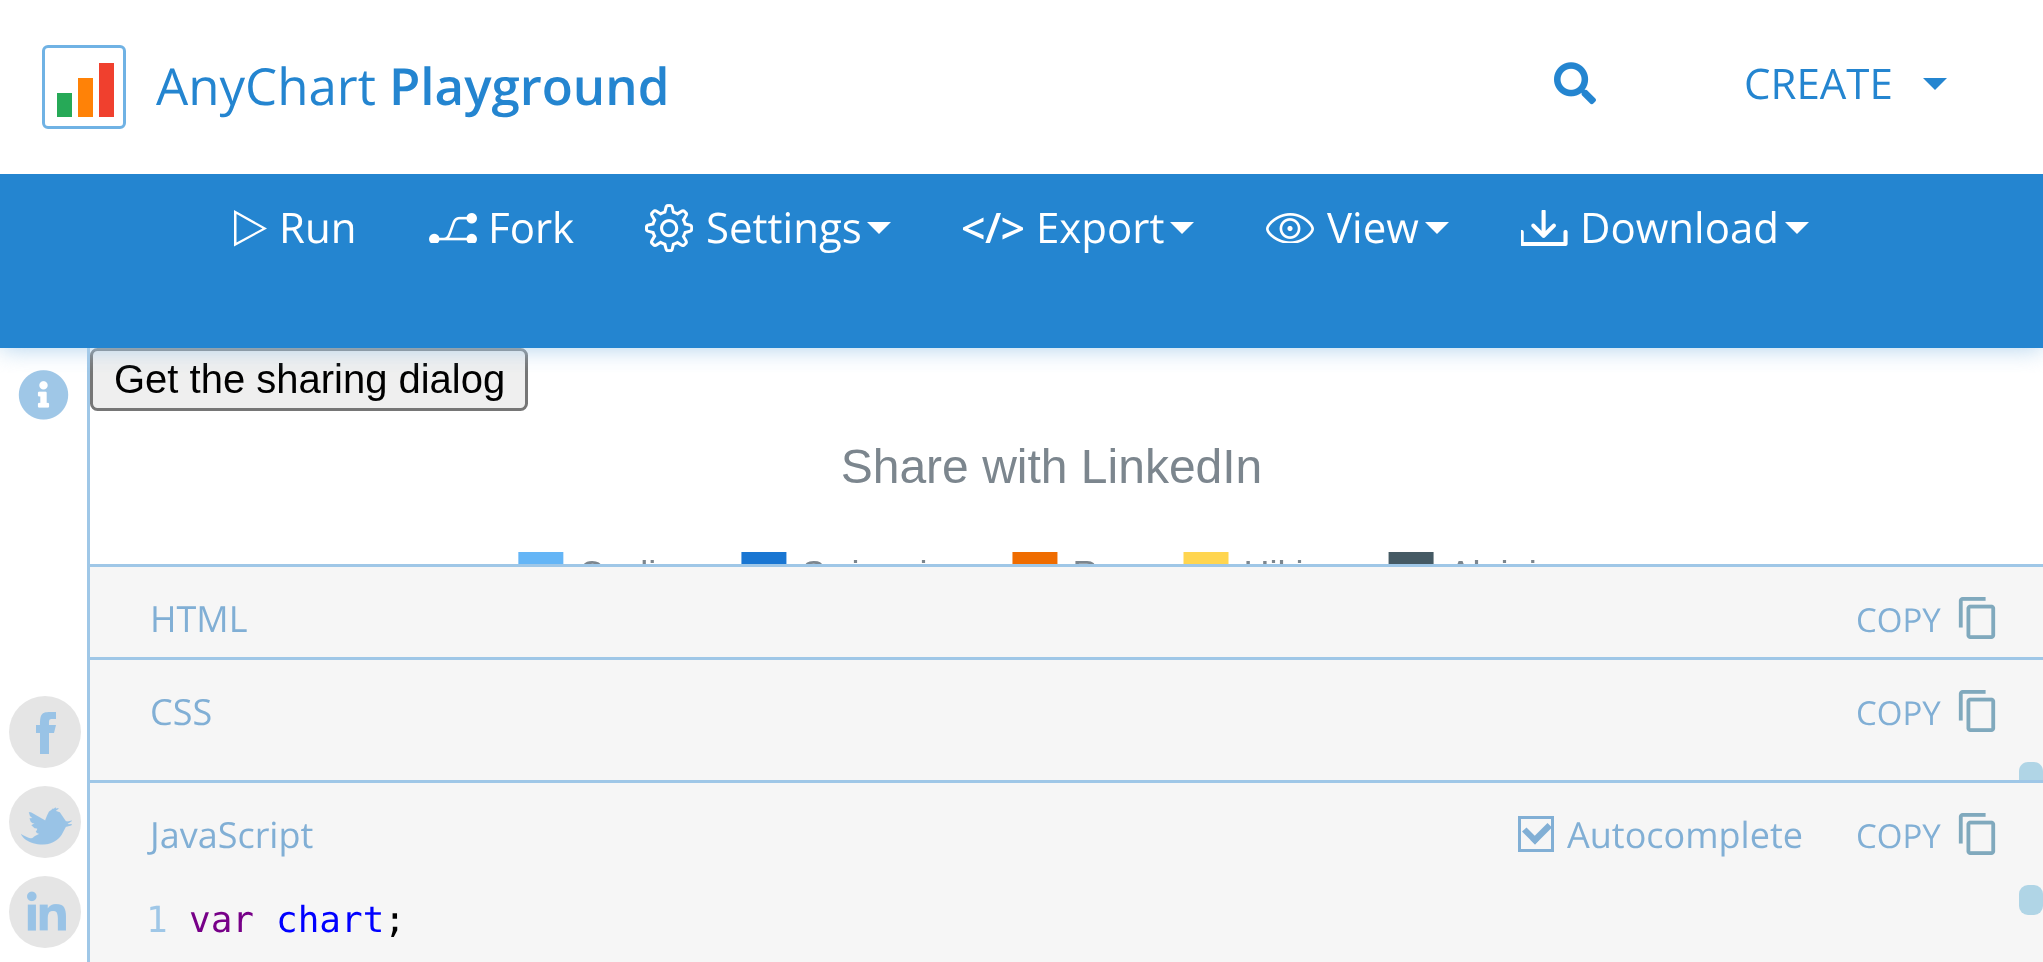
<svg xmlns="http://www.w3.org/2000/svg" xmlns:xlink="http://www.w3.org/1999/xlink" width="2043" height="962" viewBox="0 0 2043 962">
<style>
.cls-1{font:51px Open Sans;fill:#2485d0}
.cls-2{font:600 51px Open Sans;fill:#2485d0}
.cls-3{font:42px Open Sans;fill:#2485d0}
.cls-4{font:42px Open Sans;fill:#ffffff}
.cls-5{font:36px Open Sans;fill:#81afd5}
.cls-6{font:33px Open Sans;fill:#81afd5}
.cls-7{font:36px DejaVu Sans Mono;fill:#9fc7e7}
.cls-8{font:36px DejaVu Sans Mono;fill:#770088}
.cls-9{font:36px DejaVu Sans Mono;fill:#0000ff}
.cls-10{font:36px DejaVu Sans Mono;fill:#000000}
</style>
<defs>
<clipPath id="clip1"><rect x="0" y="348" width="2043" height="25"/></clipPath>
<clipPath id="clip2"><rect x="963" y="213" width="60" height="30"/></clipPath>
</defs>
<rect width="100%" height="100%" fill="#ffffff"/>
<rect fill="#9fc7e7" x="87" y="348" width="3" height="614"/>
<image xlink:href="image5.png" x="18" y="370" width="51" height="50"/>
<image xlink:href="image8.png" x="90" y="348" width="1445" height="216"/>
<g clip-path="url(#clip1)">
<rect fill="#acd0ec" filter="blur(12px)" x="0" y="0" width="2043" height="348"/>
</g>
<rect fill="none" stroke="#70b2e4" stroke-width="3" x="43.5" y="46.5" width="81" height="81" rx="4.5"/>
<rect fill="#26a957" x="57" y="93" width="15" height="24"/>
<rect fill="#ff8207" x="78" y="78" width="15" height="39"/>
<rect fill="#f0402e" x="99" y="63" width="15" height="54"/>
<image xlink:href="image0.png" x="1554" y="62" width="42" height="43"/>
<path fill="#2485d0" d="M1923 78H1947L1935 90Z"/>
<rect fill="#2485d0" x="0" y="174" width="2043" height="174"/>
<path fill="#ffffff" d="M234 246.5V210L267 228.5ZM236.5 242.5L262.5 228.5L236.5 214Z"/>
<image xlink:href="image1.png" x="429" y="213" width="48" height="30"/>
<image xlink:href="image2.png" x="645" y="204" width="48" height="48"/>
<path fill="#ffffff" d="M867 222H891L879 234Z"/>
<path fill="#ffffff" d="M983.5 239.5L963 230V227.5L983.5 217.5V221.5L968 228.5L983.5 235Z"/>
<g clip-path="url(#clip2)">
<path fill="#ffffff" d="M1001 213L989.5 244H985L996.5 213Z"/>
</g>
<path fill="#ffffff" d="M1002.5 235L1018 228.5L1002.5 221.5V217.5L1023 227.5V230L1002.5 239.5Z"/>
<path fill="#ffffff" d="M1170 222H1194L1182 234Z"/>
<image xlink:href="image3.png" x="1266" y="213" width="48" height="30"/>
<path fill="#ffffff" d="M1425 222H1449L1437 234Z"/>
<image xlink:href="image4.png" x="1521" y="210" width="47" height="36"/>
<path fill="#ffffff" d="M1785 222H1809L1797 234Z"/>
<circle fill="#e5e5e5" cx="45" cy="732" r="36"/>
<path fill="#99c3e6" d="M56 719C49 719 49 718 49 725H56L54 733H49V754H40V733H36V725H40C40 711 43 712 56 712Z"/>
<circle fill="#e5e5e5" cx="45" cy="822" r="36"/>
<image xlink:href="image6.png" x="21" y="807" width="51" height="38"/>
<circle fill="#e5e5e5" cx="45" cy="912" r="36"/>
<image xlink:href="image7.png" x="27" y="891" width="39" height="40"/>
<rect fill="#9fc7e7" x="90" y="564" width="1953" height="3"/>
<rect fill="#f6f6f6" x="90" y="567" width="1953" height="90"/>
<image xlink:href="image9.png" x="1958" y="597" width="38" height="42"/>
<rect fill="#9fc7e7" x="90" y="657" width="1953" height="3"/>
<rect fill="#f6f6f6" x="90" y="660" width="1953" height="120"/>
<image xlink:href="image9.png" x="1958" y="690" width="38" height="42"/>
<path fill="#b0d5e6" d="M2028 762H2034C2039 762 2043 766 2043 771V780H2019V771C2019 766 2023 762 2028 762Z"/>
<rect fill="#9fc7e7" x="90" y="780" width="1953" height="3"/>
<rect fill="#f6f6f6" x="90" y="783" width="1953" height="179"/>
<rect fill="none" stroke="#81afd5" stroke-width="3" x="1519.5" y="817.5" width="33" height="33"/>
<path fill="#81afd5" d="M1530.5 840L1547.5 823L1552 827.5L1535 844.5Z"/>
<path fill="#81afd5" d="M1522 831.5L1526.5 827.5L1539 840L1535 844.5Z"/>
<image xlink:href="image9.png" x="1958" y="813" width="38" height="42"/>
<rect fill="#b0d5e6" x="2019" y="885" width="24" height="30" rx="9"/>
<text class="cls-1" x="156" y="105">AnyChart</text>
<text class="cls-2" x="389" y="105">Playground</text>
<text class="cls-3" x="1744" y="99">CREATE</text>
<text class="cls-4" x="279" y="243">Run</text>
<text class="cls-4" x="488" y="243">Fork</text>
<text class="cls-4" x="706" y="243">Settings</text>
<text class="cls-4" x="1036" y="243">Export</text>
<text class="cls-4" x="1327" y="243">View</text>
<text class="cls-4" x="1580" y="243">Download</text>
<text class="cls-5" x="150" y="632">HTML</text>
<text class="cls-6" x="1856" y="632">COPY</text>
<text class="cls-5" x="150" y="725">CSS</text>
<text class="cls-6" x="1856" y="725">COPY</text>
<text class="cls-5" x="150" y="848">JavaScript</text>
<text class="cls-5" x="1567" y="848">Autocomplete</text>
<text class="cls-6" x="1856" y="848">COPY</text>
<text class="cls-7" x="146" y="932">1</text>
<text class="cls-8" x="189" y="932">var</text>
<text class="cls-9" x="276" y="932">chart</text>
<text class="cls-10" x="384" y="932">;</text>
</svg>
